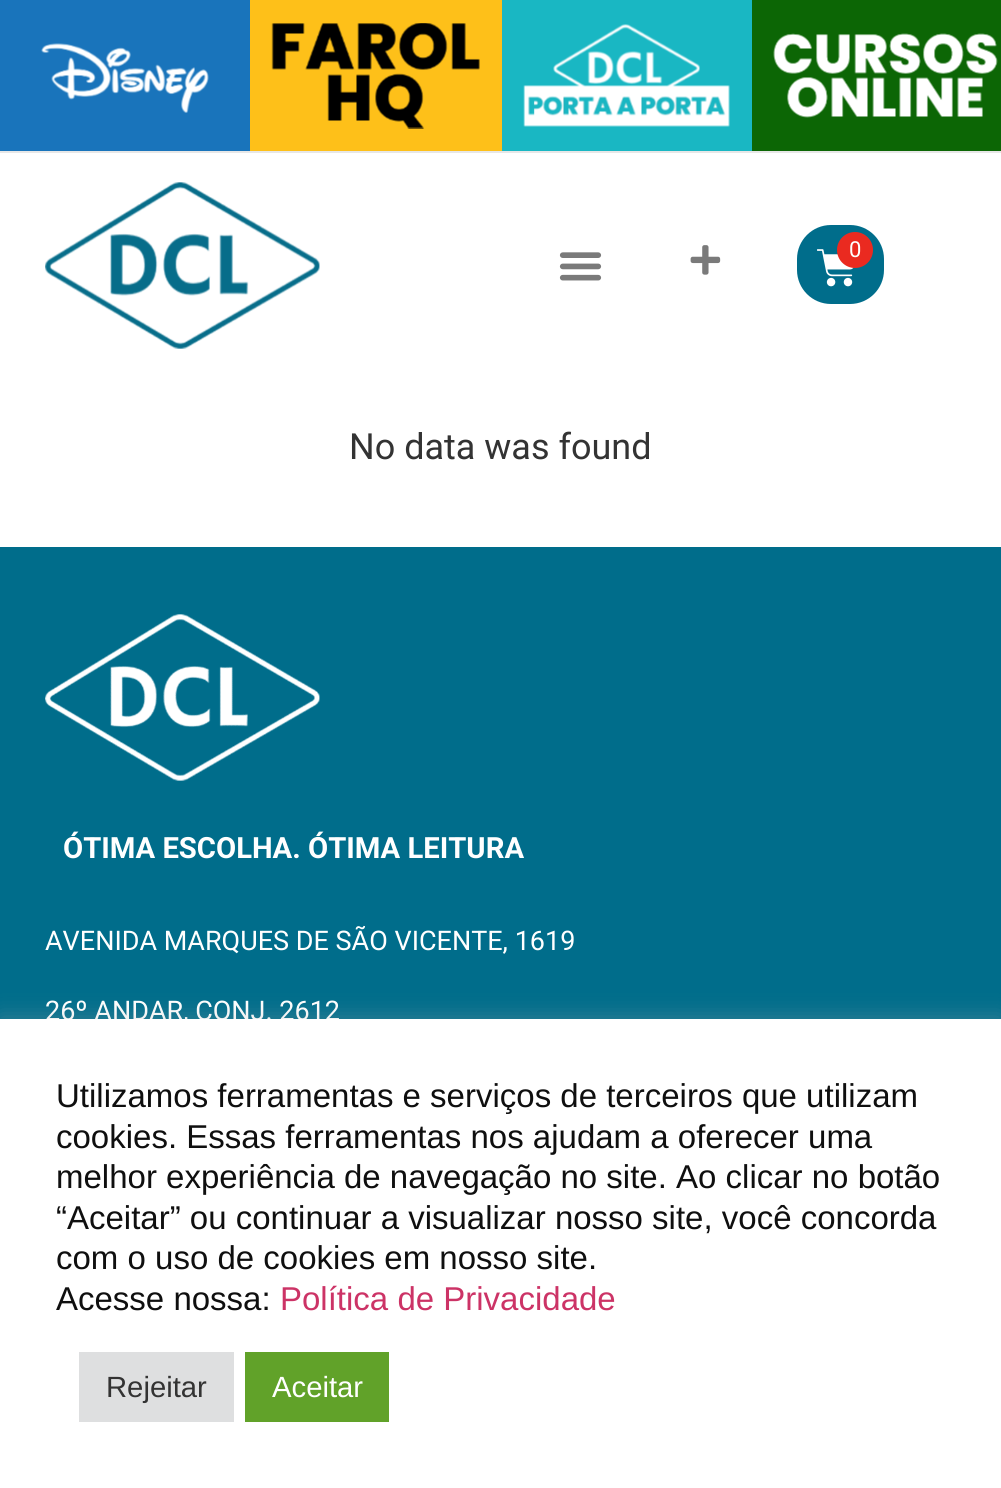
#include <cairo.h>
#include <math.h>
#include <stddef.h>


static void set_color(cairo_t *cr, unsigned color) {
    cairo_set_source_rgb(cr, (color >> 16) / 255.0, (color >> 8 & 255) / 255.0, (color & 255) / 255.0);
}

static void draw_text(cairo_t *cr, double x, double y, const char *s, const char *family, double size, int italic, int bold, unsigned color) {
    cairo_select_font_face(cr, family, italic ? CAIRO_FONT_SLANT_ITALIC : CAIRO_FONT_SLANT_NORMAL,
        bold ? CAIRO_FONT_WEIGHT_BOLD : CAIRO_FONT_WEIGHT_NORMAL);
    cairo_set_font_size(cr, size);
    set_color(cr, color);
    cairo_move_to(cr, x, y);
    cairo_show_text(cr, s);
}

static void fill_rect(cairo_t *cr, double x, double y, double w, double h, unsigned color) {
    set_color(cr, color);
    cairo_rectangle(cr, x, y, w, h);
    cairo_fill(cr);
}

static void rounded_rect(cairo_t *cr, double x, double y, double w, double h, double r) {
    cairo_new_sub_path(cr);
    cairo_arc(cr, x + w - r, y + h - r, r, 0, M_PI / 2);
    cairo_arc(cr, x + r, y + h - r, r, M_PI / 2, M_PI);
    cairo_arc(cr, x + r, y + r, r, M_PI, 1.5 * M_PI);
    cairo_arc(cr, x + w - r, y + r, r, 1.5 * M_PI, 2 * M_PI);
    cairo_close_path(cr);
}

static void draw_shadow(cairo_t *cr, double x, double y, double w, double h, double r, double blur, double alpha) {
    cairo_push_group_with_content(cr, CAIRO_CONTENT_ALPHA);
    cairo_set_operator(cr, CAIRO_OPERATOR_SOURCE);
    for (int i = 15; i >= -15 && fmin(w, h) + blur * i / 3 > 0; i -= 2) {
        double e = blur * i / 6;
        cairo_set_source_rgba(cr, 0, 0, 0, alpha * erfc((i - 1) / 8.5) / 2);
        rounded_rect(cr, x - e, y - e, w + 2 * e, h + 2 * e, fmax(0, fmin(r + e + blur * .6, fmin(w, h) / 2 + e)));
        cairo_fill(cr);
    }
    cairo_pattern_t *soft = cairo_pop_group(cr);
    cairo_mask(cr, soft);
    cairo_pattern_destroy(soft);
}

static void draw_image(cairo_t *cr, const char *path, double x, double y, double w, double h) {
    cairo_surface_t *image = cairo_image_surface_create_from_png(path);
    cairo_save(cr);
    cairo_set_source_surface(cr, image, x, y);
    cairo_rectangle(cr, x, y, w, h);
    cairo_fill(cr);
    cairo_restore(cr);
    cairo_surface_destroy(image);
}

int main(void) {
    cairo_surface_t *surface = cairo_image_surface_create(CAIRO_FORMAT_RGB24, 1001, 1488);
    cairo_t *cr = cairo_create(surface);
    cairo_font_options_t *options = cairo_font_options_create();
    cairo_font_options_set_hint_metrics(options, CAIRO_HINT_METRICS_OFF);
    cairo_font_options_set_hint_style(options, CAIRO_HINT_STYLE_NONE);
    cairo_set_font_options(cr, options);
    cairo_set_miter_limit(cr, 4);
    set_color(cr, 0xFFFFFF);
    cairo_paint(cr);
    fill_rect(cr, 0, 151, 1001, 2, 0xE7E7E7);
    fill_rect(cr, 0, 0, 250, 151, 0x1974BB);
    draw_image(cr, "assets/img1.png", 41, 43, 168, 70);
    fill_rect(cr, 250, 0, 252, 151, 0xFEC019);
    draw_image(cr, "assets/img2.png", 271, 23, 209, 106);
    fill_rect(cr, 502, 0, 250, 151, 0x19B7C3);
    draw_image(cr, "assets/img3.png", 523, 24, 207, 103);
    fill_rect(cr, 752, 0, 249, 151, 0x0C6605);
    draw_image(cr, "assets/img4.png", 773, 33, 225, 85);
    draw_image(cr, "assets/img5.png", 45, 182, 275, 167);
    draw_image(cr, "assets/img6.png", 559, 252, 43, 29);
    draw_image(cr, "assets/img7.png", 690, 245, 31, 30);
    set_color(cr, 0x006D8B);
    rounded_rect(cr, 797, 225, 87, 79, 34);
    cairo_fill(cr);
    draw_image(cr, "assets/img8.png", 817, 249, 37, 38);
    set_color(cr, 0xEA2A20);
    cairo_arc(cr, 855, 250, 18, 0, 2 * M_PI);
    cairo_fill(cr);
    draw_text(cr, 849, 257, "0", "Roboto", 22, 0, 0, 0xFFFFFF);
    draw_text(cr, 349, 459, "No data was found", "Roboto", 36, 0, 0, 0x333333);
    fill_rect(cr, 0, 547, 1001, 472, 0x006D8B);
    draw_image(cr, "assets/img9.png", 45, 614, 275, 167);
    draw_text(cr, 63, 858, "ÓTIMA ESCOLHA. ÓTIMA LEITURA", "Roboto", 29.25, 0, 1, 0xFFFFFF);
    draw_text(cr, 45, 950, "AVENIDA MARQUES DE SÃO VICENTE, 1619", "Roboto", 27, 0, 0, 0xFFFFFF);
    draw_text(cr, 45, 1020, "26º ANDAR, CONJ. 2612", "Roboto", 27, 0, 0, 0xFFFFFF);
    set_color(cr, 0xACABAB);
    draw_shadow(cr, 0, 1017, 1001, 470, 0, 11, 0.3);
    fill_rect(cr, 0, 1019, 1001, 469, 0xFFFFFF);
    draw_text(cr, 56, 1107, "Utilizamos ferramentas e serviços de terceiros que utilizam", "Liberation Sans", 33, 0, 0, 0x0F0F0F);
    draw_text(cr, 56, 1148, "cookies. Essas ferramentas nos ajudam a oferecer uma", "Liberation Sans", 33, 0, 0, 0x0F0F0F);
    draw_text(cr, 56, 1188, "melhor experiência de navegação no site. Ao clicar no botão", "Liberation Sans", 33, 0, 0, 0x0F0F0F);
    draw_text(cr, 56, 1229, "“Aceitar” ou continuar a visualizar nosso site, você concorda", "Liberation Sans", 33, 0, 0, 0x0F0F0F);
    draw_text(cr, 56, 1269, "com o uso de cookies em nosso site.", "Liberation Sans", 33, 0, 0, 0x0F0F0F);
    draw_text(cr, 56, 1310, "Acesse nossa:", "Liberation Sans", 33, 0, 0, 0x0F0F0F);
    draw_text(cr, 280, 1310, "Política de Privacidade", "Liberation Sans", 33, 0, 0, 0xCC3366);
    fill_rect(cr, 79, 1352, 155, 70, 0xDEDFE0);
    draw_text(cr, 106, 1397, "Rejeitar", "Liberation Sans", 29.25, 0, 0, 0x333333);
    fill_rect(cr, 245, 1352, 144, 70, 0x61A229);
    draw_text(cr, 272, 1397, "Aceitar", "Liberation Sans", 29.25, 0, 0, 0xFFFFFF);
    cairo_surface_write_to_png(surface, "output.png");
    cairo_font_options_destroy(options);
    cairo_destroy(cr);
    cairo_surface_destroy(surface);
    return 0;
}
